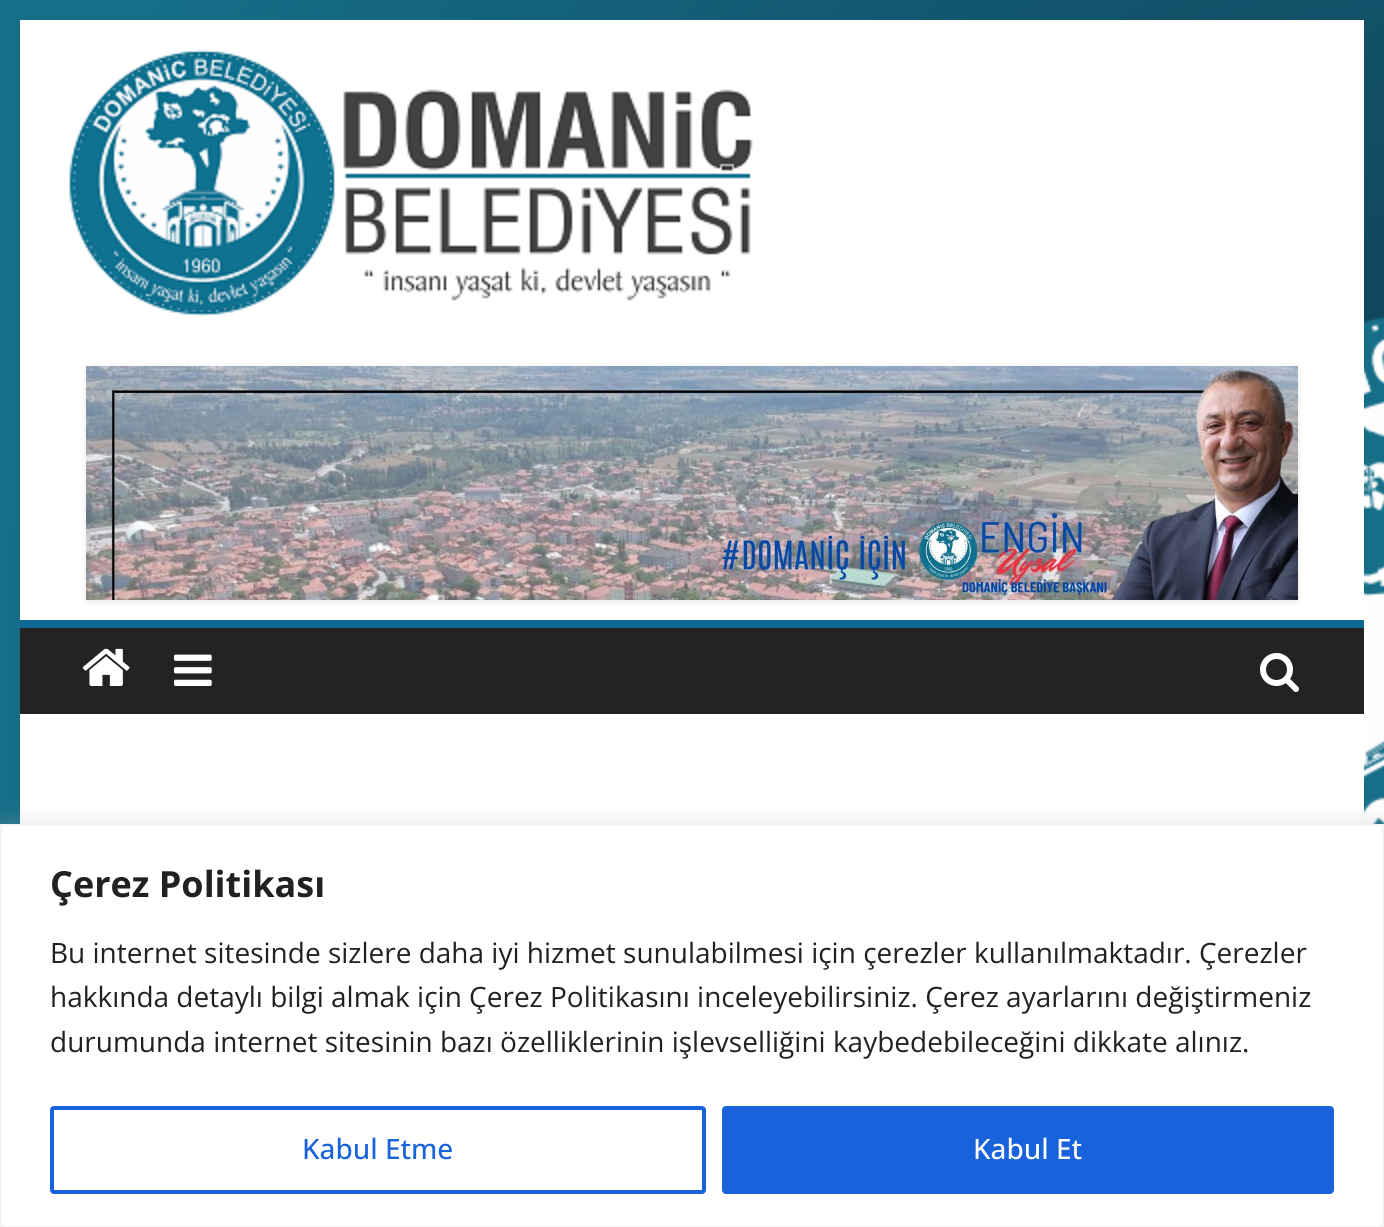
#include <cairo.h>
#include <math.h>
#include <stddef.h>


static void set_color(cairo_t *cr, unsigned color) {
    cairo_set_source_rgb(cr, (color >> 16) / 255.0, (color >> 8 & 255) / 255.0, (color & 255) / 255.0);
}

static void draw_text(cairo_t *cr, double x, double y, const char *s, const char *family, double size, int italic, int bold, unsigned color) {
    cairo_select_font_face(cr, family, italic ? CAIRO_FONT_SLANT_ITALIC : CAIRO_FONT_SLANT_NORMAL,
        bold ? CAIRO_FONT_WEIGHT_BOLD : CAIRO_FONT_WEIGHT_NORMAL);
    cairo_set_font_size(cr, size);
    set_color(cr, color);
    cairo_move_to(cr, x, y);
    cairo_show_text(cr, s);
}

static void fill_rect(cairo_t *cr, double x, double y, double w, double h, unsigned color) {
    set_color(cr, color);
    cairo_rectangle(cr, x, y, w, h);
    cairo_fill(cr);
}

static void rounded_rect(cairo_t *cr, double x, double y, double w, double h, double r) {
    cairo_new_sub_path(cr);
    cairo_arc(cr, x + w - r, y + h - r, r, 0, M_PI / 2);
    cairo_arc(cr, x + r, y + h - r, r, M_PI / 2, M_PI);
    cairo_arc(cr, x + r, y + r, r, M_PI, 1.5 * M_PI);
    cairo_arc(cr, x + w - r, y + r, r, 1.5 * M_PI, 2 * M_PI);
    cairo_close_path(cr);
}

static void draw_shadow(cairo_t *cr, double x, double y, double w, double h, double r, double blur, double alpha) {
    cairo_push_group_with_content(cr, CAIRO_CONTENT_ALPHA);
    cairo_set_operator(cr, CAIRO_OPERATOR_SOURCE);
    for (int i = 15; i >= -15 && fmin(w, h) + blur * i / 3 > 0; i -= 2) {
        double e = blur * i / 6;
        cairo_set_source_rgba(cr, 0, 0, 0, alpha * erfc((i - 1) / 8.5) / 2);
        rounded_rect(cr, x - e, y - e, w + 2 * e, h + 2 * e, fmax(0, fmin(r + e + blur * .6, fmin(w, h) / 2 + e)));
        cairo_fill(cr);
    }
    cairo_pattern_t *soft = cairo_pop_group(cr);
    cairo_mask(cr, soft);
    cairo_pattern_destroy(soft);
}

static void draw_image(cairo_t *cr, const char *path, double x, double y, double w, double h) {
    cairo_surface_t *image = cairo_image_surface_create_from_png(path);
    cairo_save(cr);
    cairo_set_source_surface(cr, image, x, y);
    cairo_rectangle(cr, x, y, w, h);
    cairo_fill(cr);
    cairo_restore(cr);
    cairo_surface_destroy(image);
}

int main(void) {
    cairo_surface_t *surface = cairo_image_surface_create(CAIRO_FORMAT_RGB24, 1384, 1227);
    cairo_t *cr = cairo_create(surface);
    cairo_font_options_t *options = cairo_font_options_create();
    cairo_font_options_set_hint_metrics(options, CAIRO_HINT_METRICS_OFF);
    cairo_font_options_set_hint_style(options, CAIRO_HINT_STYLE_NONE);
    cairo_set_font_options(cr, options);
    cairo_set_miter_limit(cr, 4);
    set_color(cr, 0xFFFFFF);
    cairo_paint(cr);
    draw_image(cr, "assets/img1.png", 0, 0, 1384, 824);
    fill_rect(cr, 20, 20, 1344, 600, 0xFFFFFF);
    draw_image(cr, "assets/img2.png", 69, 49, 684, 268);
    set_color(cr, 0x000000);
    draw_shadow(cr, 86, 368, 1212, 234, 0, 3, 0.1);
    draw_image(cr, "assets/img3.png", 86, 366, 1212, 234);
    fill_rect(cr, 20, 628, 1344, 86, 0x232323);
    fill_rect(cr, 20, 620, 1344, 8, 0x106992);
    draw_image(cr, "assets/img4.png", 82, 648, 48, 38);
    draw_image(cr, "assets/img5.png", 174, 654, 38, 32);
    draw_image(cr, "assets/img6.png", 1260, 653, 39, 39);
    fill_rect(cr, 20, 714, 1344, 110, 0xFFFFFF);
    set_color(cr, 0xACABAB);
    draw_shadow(cr, 0, 822, 1384, 404, 0, 10, 0.3);
    set_color(cr, 0xFFFFFF);
    cairo_rectangle(cr, 1, 825, 1382, 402);
    cairo_fill_preserve(cr);
    set_color(cr, 0xF4F4F4);
    cairo_stroke(cr);
    draw_text(cr, 50, 897, "Çerez Politikası", "Open Sans", 36, 0, 1, 0x212121);
    draw_text(cr, 50, 963, "Bu internet sitesinde sizlere daha iyi hizmet sunulabilmesi için çerezler kullanılmaktadır. Çerezler", "Open Sans", 28, 0, 0, 0x212121);
    draw_text(cr, 50, 1007, "hakkında detaylı bilgi almak için Çerez Politikasını inceleyebilirsiniz. Çerez ayarlarını değiştirmeniz", "Open Sans", 28, 0, 0, 0x212121);
    draw_text(cr, 50, 1052, "durumunda internet sitesinin bazı özelliklerinin işlevselliğini kaybedebileceğini dikkate alınız.", "Open Sans", 28, 0, 0, 0x212121);
    rounded_rect(cr, 52, 1108, 652, 84, 2);
    set_color(cr, 0x1863DC);
    cairo_set_line_width(cr, 4);
    cairo_stroke(cr);
    draw_text(cr, 302, 1159, "Kabul Etme", "Open Sans Medium", 28, 0, 0, 0x1863DC);
    rounded_rect(cr, 724, 1108, 608, 84, 2);
    cairo_fill_preserve(cr);
    cairo_stroke(cr);
    draw_text(cr, 973, 1159, "Kabul Et", "Open Sans Medium", 28, 0, 0, 0xFFFFFF);
    cairo_surface_write_to_png(surface, "output.png");
    cairo_font_options_destroy(options);
    cairo_destroy(cr);
    cairo_surface_destroy(surface);
    return 0;
}
